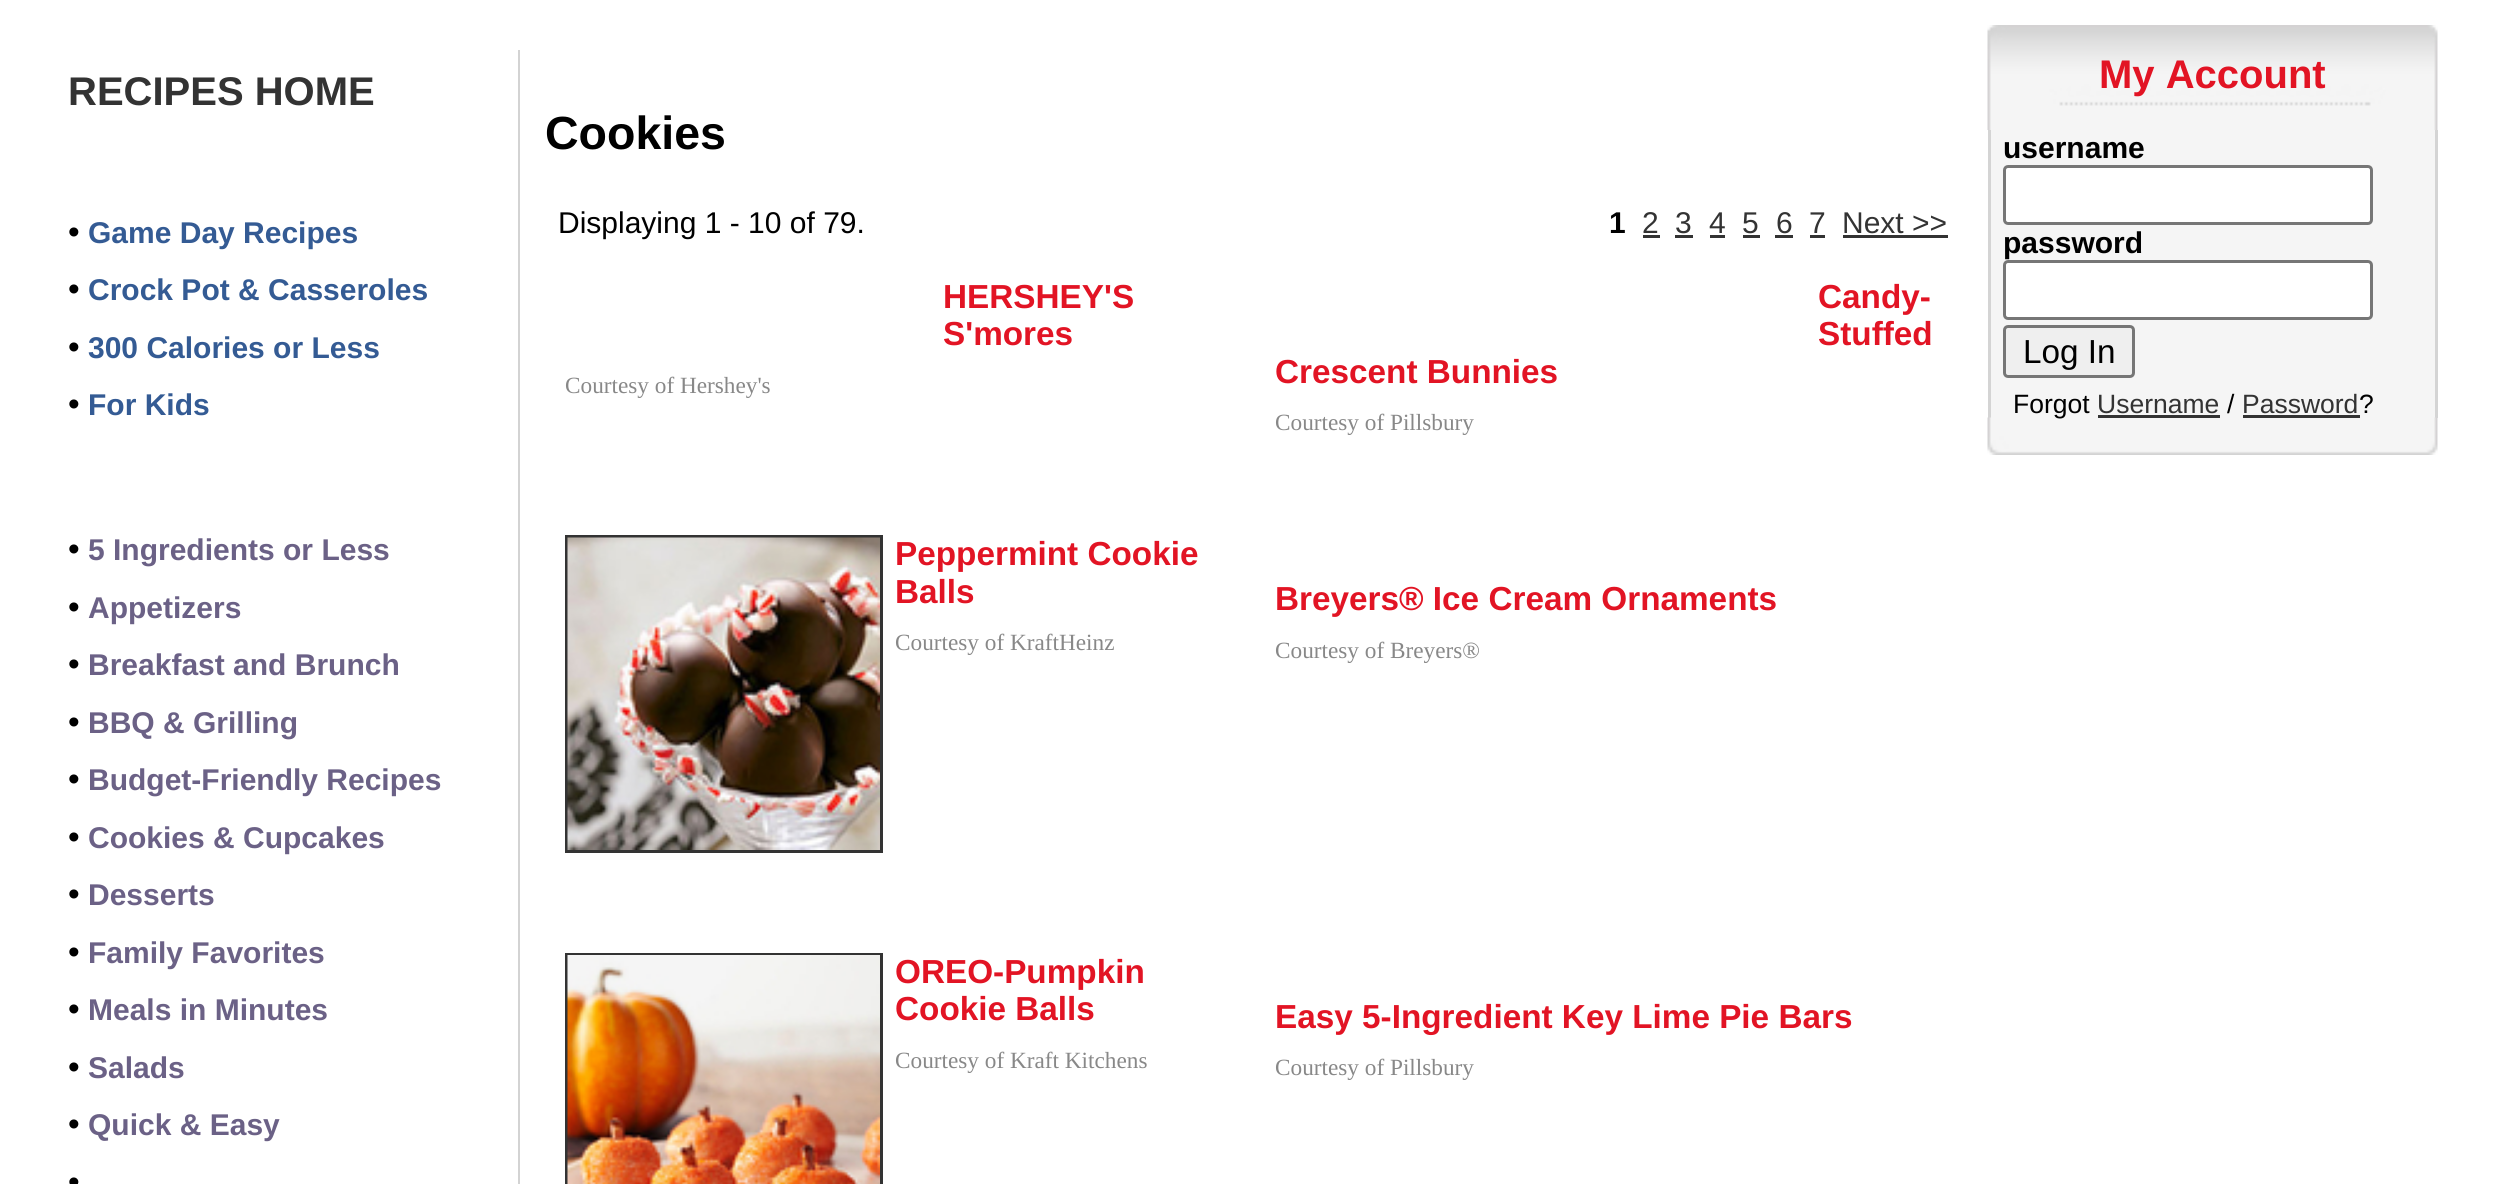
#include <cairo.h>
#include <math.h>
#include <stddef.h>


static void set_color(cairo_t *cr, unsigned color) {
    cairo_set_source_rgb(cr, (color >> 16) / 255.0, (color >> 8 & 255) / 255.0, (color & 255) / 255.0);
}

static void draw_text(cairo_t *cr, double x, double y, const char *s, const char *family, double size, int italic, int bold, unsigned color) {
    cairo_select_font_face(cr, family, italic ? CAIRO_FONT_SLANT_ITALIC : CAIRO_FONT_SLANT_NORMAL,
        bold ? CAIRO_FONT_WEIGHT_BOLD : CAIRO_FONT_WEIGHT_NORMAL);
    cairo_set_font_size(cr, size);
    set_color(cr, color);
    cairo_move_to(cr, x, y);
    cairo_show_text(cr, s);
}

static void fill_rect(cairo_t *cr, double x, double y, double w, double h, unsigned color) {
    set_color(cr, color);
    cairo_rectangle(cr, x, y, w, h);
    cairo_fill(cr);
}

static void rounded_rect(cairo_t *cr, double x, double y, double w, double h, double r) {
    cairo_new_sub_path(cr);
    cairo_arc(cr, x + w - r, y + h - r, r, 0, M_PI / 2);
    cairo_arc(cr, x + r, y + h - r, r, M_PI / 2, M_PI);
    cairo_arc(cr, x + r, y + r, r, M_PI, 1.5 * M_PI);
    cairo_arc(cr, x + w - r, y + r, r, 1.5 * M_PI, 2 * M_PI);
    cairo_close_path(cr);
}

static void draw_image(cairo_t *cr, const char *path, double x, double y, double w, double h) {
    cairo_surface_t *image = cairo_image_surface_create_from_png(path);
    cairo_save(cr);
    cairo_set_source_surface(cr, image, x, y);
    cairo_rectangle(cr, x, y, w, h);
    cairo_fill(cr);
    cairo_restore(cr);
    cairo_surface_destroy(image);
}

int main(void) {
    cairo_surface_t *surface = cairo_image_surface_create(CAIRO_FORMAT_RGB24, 2505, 1184);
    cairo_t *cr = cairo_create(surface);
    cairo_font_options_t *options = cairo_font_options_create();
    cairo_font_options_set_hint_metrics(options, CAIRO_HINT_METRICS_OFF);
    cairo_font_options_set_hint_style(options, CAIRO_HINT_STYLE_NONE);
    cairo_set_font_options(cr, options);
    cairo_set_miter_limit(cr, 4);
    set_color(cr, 0xFFFFFF);
    cairo_paint(cr);
    fill_rect(cr, 518, 50, 2, 1134, 0xD3D3D3);
    draw_text(cr, 68, 105, "RECIPES HOME", "Liberation Sans", 40, 0, 1, 0x333333);
    draw_text(cr, 68, 243, "•", "Liberation Sans", 33.3, 0, 0, 0x000000);
    draw_text(cr, 88, 243, "Game Day Recipes", "Liberation Sans", 30, 0, 1, 0x345B94);
    draw_text(cr, 68, 300, "•", "Liberation Sans", 33.3, 0, 0, 0x000000);
    draw_text(cr, 88, 300, "Crock Pot & Casseroles", "Liberation Sans", 30, 0, 1, 0x345B94);
    draw_text(cr, 68, 358, "•", "Liberation Sans", 33.3, 0, 0, 0x000000);
    draw_text(cr, 88, 358, "300 Calories or Less", "Liberation Sans", 30, 0, 1, 0x345B94);
    draw_text(cr, 68, 415, "•", "Liberation Sans", 33.3, 0, 0, 0x000000);
    draw_text(cr, 88, 415, "For Kids", "Liberation Sans", 30, 0, 1, 0x345B94);
    draw_text(cr, 68, 560, "•", "Liberation Sans", 33.3, 0, 0, 0x000000);
    draw_text(cr, 88, 560, "5 Ingredients or Less", "Liberation Sans", 30, 0, 1, 0x6B6186);
    draw_text(cr, 68, 618, "•", "Liberation Sans", 33.3, 0, 0, 0x000000);
    draw_text(cr, 88, 618, "Appetizers", "Liberation Sans", 30, 0, 1, 0x6B6186);
    draw_text(cr, 68, 675, "•", "Liberation Sans", 33.3, 0, 0, 0x000000);
    draw_text(cr, 88, 675, "Breakfast and Brunch", "Liberation Sans", 30, 0, 1, 0x6B6186);
    draw_text(cr, 68, 733, "•", "Liberation Sans", 33.3, 0, 0, 0x000000);
    draw_text(cr, 88, 733, "BBQ & Grilling", "Liberation Sans", 30, 0, 1, 0x6B6186);
    draw_text(cr, 68, 790, "•", "Liberation Sans", 33.3, 0, 0, 0x000000);
    draw_text(cr, 88, 790, "Budget-Friendly Recipes", "Liberation Sans", 30, 0, 1, 0x6B6186);
    draw_text(cr, 68, 848, "•", "Liberation Sans", 33.3, 0, 0, 0x000000);
    draw_text(cr, 88, 848, "Cookies & Cupcakes", "Liberation Sans", 30, 0, 1, 0x6B6186);
    draw_text(cr, 68, 905, "•", "Liberation Sans", 33.3, 0, 0, 0x000000);
    draw_text(cr, 88, 905, "Desserts", "Liberation Sans", 30, 0, 1, 0x6B6186);
    draw_text(cr, 68, 963, "•", "Liberation Sans", 33.3, 0, 0, 0x000000);
    draw_text(cr, 88, 963, "Family Favorites", "Liberation Sans", 30, 0, 1, 0x6B6186);
    draw_text(cr, 68, 1020, "•", "Liberation Sans", 33.3, 0, 0, 0x000000);
    draw_text(cr, 88, 1020, "Meals in Minutes", "Liberation Sans", 30, 0, 1, 0x6B6186);
    draw_text(cr, 68, 1078, "•", "Liberation Sans", 33.3, 0, 0, 0x000000);
    draw_text(cr, 88, 1078, "Salads", "Liberation Sans", 30, 0, 1, 0x6B6186);
    draw_text(cr, 68, 1135, "•", "Liberation Sans", 33.3, 0, 0, 0x000000);
    draw_text(cr, 88, 1135, "Quick & Easy", "Liberation Sans", 30, 0, 1, 0x6B6186);
    draw_text(cr, 68, 1193, "•", "Liberation Sans", 33.3, 0, 0, 0x000000);
    draw_text(cr, 545, 149, "Cookies", "Liberation Sans", 46.5, 0, 1, 0x000000);
    draw_text(cr, 558, 233, "Displaying 1 - 10 of 79.", "Liberation Sans", 30, 0, 0, 0x000000);
    draw_text(cr, 1609, 233, "1", "Liberation Sans", 30, 0, 1, 0x000000);
    draw_text(cr, 1642, 233, "2", "Liberation Sans", 30, 0, 0, 0x333333);
    fill_rect(cr, 1643, 235, 17, 3, 0x333333);
    draw_text(cr, 1675, 233, "3", "Liberation Sans", 30, 0, 0, 0x333333);
    fill_rect(cr, 1675, 235, 18, 3, 0x333333);
    draw_text(cr, 1709, 233, "4", "Liberation Sans", 30, 0, 0, 0x333333);
    fill_rect(cr, 1710, 235, 15, 3, 0x333333);
    draw_text(cr, 1742, 233, "5", "Liberation Sans", 30, 0, 0, 0x333333);
    fill_rect(cr, 1743, 235, 17, 3, 0x333333);
    draw_text(cr, 1776, 233, "6", "Liberation Sans", 30, 0, 0, 0x333333);
    fill_rect(cr, 1775, 235, 18, 3, 0x333333);
    draw_text(cr, 1809, 233, "7", "Liberation Sans", 30, 0, 0, 0x333333);
    fill_rect(cr, 1810, 235, 15, 3, 0x333333);
    draw_text(cr, 1842, 233, "Next >>", "Liberation Sans", 30, 0, 0, 0x333333);
    fill_rect(cr, 1843, 235, 105, 3, 0x333333);
    draw_text(cr, 943, 308, "HERSHEY'S", "Liberation Sans", 33.3, 0, 1, 0xE21424);
    draw_text(cr, 943, 345, "S'mores", "Liberation Sans", 33.3, 0, 1, 0xE21424);
    draw_text(cr, 565, 393, "Courtesy of Hershey's", "Liberation Serif", 23.25, 0, 0, 0x888888);
    draw_text(cr, 1818, 308, "Candy-", "Liberation Sans", 33.3, 0, 1, 0xE21424);
    draw_text(cr, 1818, 345, "Stuffed", "Liberation Sans", 33.3, 0, 1, 0xE21424);
    draw_text(cr, 1275, 383, "Crescent Bunnies", "Liberation Sans", 33.3, 0, 1, 0xE21424);
    draw_text(cr, 1275, 430, "Courtesy of Pillsbury", "Liberation Serif", 23.25, 0, 0, 0x888888);
    cairo_rectangle(cr, 566.5, 536.5, 315, 315);
    set_color(cr, 0x333333);
    cairo_set_line_width(cr, 3);
    cairo_stroke(cr);
    draw_image(cr, "assets/img1.png", 567, 537, 313, 313);
    draw_text(cr, 895, 565, "Peppermint Cookie", "Liberation Sans", 33.3, 0, 1, 0xE21424);
    draw_text(cr, 895, 603, "Balls", "Liberation Sans", 33.3, 0, 1, 0xE21424);
    draw_text(cr, 895, 650, "Courtesy of KraftHeinz", "Liberation Serif", 23.25, 0, 0, 0x888888);
    draw_text(cr, 1275, 610, "Breyers® Ice Cream Ornaments", "Liberation Sans", 33.3, 0, 1, 0xE21424);
    draw_text(cr, 1275, 658, "Courtesy of Breyers®", "Liberation Serif", 23.25, 0, 0, 0x888888);
    cairo_rectangle(cr, 566.5, 954.5, 315, 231);
    set_color(cr, 0x333333);
    cairo_stroke(cr);
    draw_image(cr, "assets/img2.png", 567, 955, 313, 229);
    draw_text(cr, 895, 983, "OREO-Pumpkin", "Liberation Sans", 33.3, 0, 1, 0xE21424);
    draw_text(cr, 895, 1020, "Cookie Balls", "Liberation Sans", 33.3, 0, 1, 0xE21424);
    draw_text(cr, 895, 1068, "Courtesy of Kraft Kitchens", "Liberation Serif", 23.25, 0, 0, 0x888888);
    draw_text(cr, 1275, 1028, "Easy 5-Ingredient Key Lime Pie Bars", "Liberation Sans", 33.3, 0, 1, 0xE21424);
    draw_text(cr, 1275, 1075, "Courtesy of Pillsbury", "Liberation Serif", 23.25, 0, 0, 0x888888);
    draw_image(cr, "assets/img3.png", 1987, 25, 451, 105);
    draw_text(cr, 2099, 88, "My Account", "Liberation Sans", 40, 0, 1, 0xE21424);
    fill_rect(cr, 1991, 130, 444, 288, 0xF5F5F5);
    fill_rect(cr, 2435, 130, 3, 288, 0xD4D4D4);
    fill_rect(cr, 1988, 130, 3, 288, 0xD4D4D4);
    draw_text(cr, 2003, 158, "username", "Liberation Sans", 30, 0, 1, 0x000000);
    set_color(cr, 0xFFFFFF);
    rounded_rect(cr, 2004.5, 166.5, 367, 57, 3.5);
    cairo_fill_preserve(cr);
    set_color(cr, 0x767676);
    cairo_stroke(cr);
    draw_text(cr, 2003, 253, "password", "Liberation Sans", 30, 0, 1, 0x000000);
    set_color(cr, 0xFFFFFF);
    rounded_rect(cr, 2004.5, 261.5, 367, 57, 3.5);
    cairo_fill_preserve(cr);
    set_color(cr, 0x767676);
    cairo_stroke(cr);
    set_color(cr, 0xEFEFEF);
    rounded_rect(cr, 2004.5, 326.5, 129, 50, 3.5);
    cairo_fill_preserve(cr);
    set_color(cr, 0x767676);
    cairo_stroke(cr);
    draw_text(cr, 2023, 363, "Log In", "Liberation Sans", 33.3, 0, 0, 0x000000);
    draw_image(cr, "assets/img4.png", 1987, 417, 451, 38);
    draw_text(cr, 2013, 413, "Forgot", "Liberation Sans", 26.5, 0, 0, 0x000000);
    draw_text(cr, 2097, 413, "Username", "Liberation Sans", 26.5, 0, 0, 0x333333);
    fill_rect(cr, 2098, 415, 122, 3, 0x333333);
    draw_text(cr, 2227, 413, "/", "Liberation Sans", 26.5, 0, 0, 0x000000);
    draw_text(cr, 2242, 413, "Password", "Liberation Sans", 26.5, 0, 0, 0x333333);
    fill_rect(cr, 2243, 415, 117, 3, 0x333333);
    draw_text(cr, 2359, 413, "?", "Liberation Sans", 26.5, 0, 0, 0x000000);
    cairo_surface_write_to_png(surface, "output.png");
    cairo_font_options_destroy(options);
    cairo_destroy(cr);
    cairo_surface_destroy(surface);
    return 0;
}
